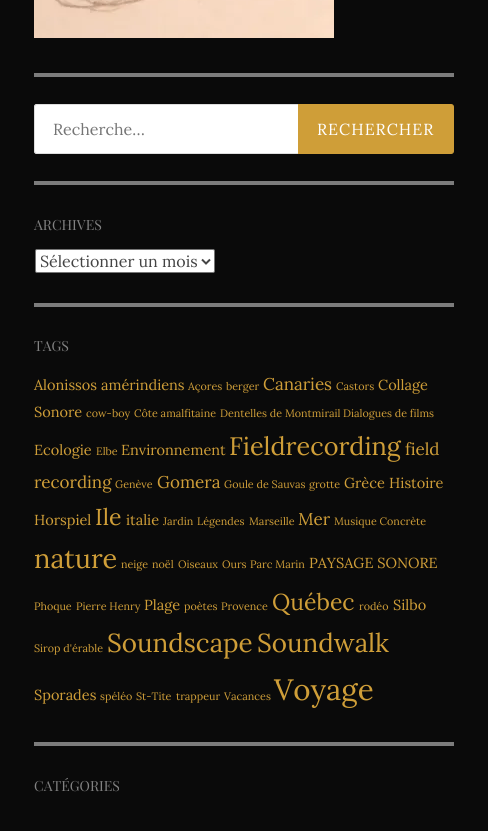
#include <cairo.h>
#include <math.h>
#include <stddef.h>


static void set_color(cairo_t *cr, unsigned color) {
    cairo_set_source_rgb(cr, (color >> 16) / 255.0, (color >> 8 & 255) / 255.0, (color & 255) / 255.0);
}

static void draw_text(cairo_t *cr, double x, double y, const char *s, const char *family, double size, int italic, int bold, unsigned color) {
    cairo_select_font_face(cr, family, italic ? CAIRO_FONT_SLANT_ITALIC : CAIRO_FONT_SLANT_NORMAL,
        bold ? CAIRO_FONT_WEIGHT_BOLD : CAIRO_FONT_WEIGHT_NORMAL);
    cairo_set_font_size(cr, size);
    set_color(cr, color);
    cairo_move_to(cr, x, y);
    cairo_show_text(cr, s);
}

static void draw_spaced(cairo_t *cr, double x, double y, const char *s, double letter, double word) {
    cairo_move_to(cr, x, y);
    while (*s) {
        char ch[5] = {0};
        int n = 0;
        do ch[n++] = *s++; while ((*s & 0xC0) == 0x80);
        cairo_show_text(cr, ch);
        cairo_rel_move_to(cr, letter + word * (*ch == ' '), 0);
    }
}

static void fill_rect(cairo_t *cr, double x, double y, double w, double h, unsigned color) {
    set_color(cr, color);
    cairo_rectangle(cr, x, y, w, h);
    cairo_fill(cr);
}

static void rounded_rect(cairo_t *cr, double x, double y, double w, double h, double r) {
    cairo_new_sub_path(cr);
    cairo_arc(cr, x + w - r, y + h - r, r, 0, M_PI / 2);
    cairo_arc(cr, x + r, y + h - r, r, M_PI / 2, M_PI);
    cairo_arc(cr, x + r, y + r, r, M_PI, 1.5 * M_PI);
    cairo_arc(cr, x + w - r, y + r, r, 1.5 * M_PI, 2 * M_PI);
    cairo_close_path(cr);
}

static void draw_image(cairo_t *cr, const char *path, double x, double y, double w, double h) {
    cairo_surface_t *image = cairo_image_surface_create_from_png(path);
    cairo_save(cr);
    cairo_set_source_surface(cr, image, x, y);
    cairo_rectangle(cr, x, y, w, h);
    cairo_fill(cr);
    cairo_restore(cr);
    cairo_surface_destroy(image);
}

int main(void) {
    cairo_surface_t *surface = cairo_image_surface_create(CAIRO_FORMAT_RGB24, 488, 831);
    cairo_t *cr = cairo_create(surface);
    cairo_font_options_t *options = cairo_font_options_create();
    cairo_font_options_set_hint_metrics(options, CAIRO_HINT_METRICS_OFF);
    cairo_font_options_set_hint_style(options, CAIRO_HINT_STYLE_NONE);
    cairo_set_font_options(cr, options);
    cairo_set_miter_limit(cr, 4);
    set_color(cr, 0x0A0A0A);
    cairo_paint(cr);
    fill_rect(cr, 34, 73, 420, 4, 0x7C7C7C);
    draw_image(cr, "assets/img1.png", 34, 0, 300, 38);
    fill_rect(cr, 34, 181, 420, 4, 0x7C7C7C);
    set_color(cr, 0xFFFFFF);
    cairo_new_path(cr);
    cairo_move_to(cr, 37, 104);
    cairo_line_to(cr, 450, 104);
    cairo_line_to(cr, 450, 154);
    cairo_line_to(cr, 37, 154);
    cairo_curve_to(cr, 35.5, 154, 34, 152.5, 34, 151);
    cairo_line_to(cr, 34, 107);
    cairo_curve_to(cr, 34, 105.5, 35.5, 104, 37, 104);
    cairo_close_path(cr);
    cairo_fill(cr);
    set_color(cr, 0xDDDDDD);
    cairo_set_fill_rule(cr, CAIRO_FILL_RULE_EVEN_ODD);
    cairo_new_path(cr);
    cairo_move_to(cr, 37, 104);
    cairo_line_to(cr, 450, 104);
    cairo_line_to(cr, 450, 154);
    cairo_line_to(cr, 37, 154);
    cairo_curve_to(cr, 35, 154, 34, 153, 34, 151);
    cairo_line_to(cr, 34, 107);
    cairo_curve_to(cr, 34, 105, 35, 104, 37, 104);
    cairo_close_path(cr);
    cairo_move_to(cr, 37, 105);
    cairo_line_to(cr, 450, 105);
    cairo_line_to(cr, 450, 153);
    cairo_line_to(cr, 37, 153);
    cairo_curve_to(cr, 36, 153, 35, 152, 35, 151);
    cairo_line_to(cr, 35, 107);
    cairo_curve_to(cr, 35, 106, 36, 105, 37, 105);
    cairo_close_path(cr);
    cairo_fill(cr);
    draw_text(cr, 53, 135, "Recherche…", "Lora", 16, 0, 0, 0x757575);
    set_color(cr, 0xCF9E38);
    cairo_new_path(cr);
    cairo_move_to(cr, 298.5, 104.5);
    cairo_line_to(cr, 451, 104.5);
    cairo_curve_to(cr, 452.5, 104.5, 453.5, 105.5, 453.5, 107);
    cairo_line_to(cr, 453.5, 151);
    cairo_curve_to(cr, 453.5, 152.5, 452.5, 153.5, 451, 153.5);
    cairo_line_to(cr, 298.5, 153.5);
    cairo_close_path(cr);
    cairo_fill_preserve(cr);
    cairo_set_line_width(cr, 1);
    cairo_stroke(cr);
    set_color(cr, 0xFFFFFF);
    draw_spaced(cr, 317, 135, "RECHERCHER", 1, 0);
    fill_rect(cr, 34, 303, 420, 4, 0x7C7C7C);
    draw_text(cr, 34, 230, "ARCHIVES", "Playfair Display", 14, 0, 0, 0x828282);
    set_color(cr, 0xFFFFFF);
    rounded_rect(cr, 35.5, 249.5, 179, 23, 1.5);
    cairo_fill_preserve(cr);
    set_color(cr, 0x767676);
    cairo_stroke(cr);
    cairo_new_path(cr);
    cairo_move_to(cr, 202, 259.5);
    cairo_line_to(cr, 206, 263.5);
    cairo_line_to(cr, 210, 259.5);
    set_color(cr, 0x444444);
    cairo_set_line_width(cr, 2);
    cairo_stroke(cr);
    draw_text(cr, 40, 267, "Sélectionner un mois", "Lora", 16, 0, 0, 0x444444);
    fill_rect(cr, 34, 742, 420, 4, 0x7C7C7C);
    draw_text(cr, 34, 351, "TAGS", "Playfair Display", 14, 0, 0, 0x828282);
    draw_text(cr, 34, 390, "Alonissos", "Lora", 14.5, 0, 0, 0xCF9E38);
    draw_text(cr, 101, 390, "amérindiens", "Lora", 14.5, 0, 0, 0xCF9E38);
    draw_text(cr, 188, 390, "Açores", "Lora", 10.75, 0, 0, 0xCF9E38);
    draw_text(cr, 226, 390, "berger", "Lora", 10.75, 0, 0, 0xCF9E38);
    draw_text(cr, 263, 390, "Canaries", "Lora", 17, 0, 0, 0xCF9E38);
    draw_text(cr, 336, 390, "Castors", "Lora", 10.75, 0, 0, 0xCF9E38);
    draw_text(cr, 378, 390, "Collage", "Lora", 14.5, 0, 0, 0xCF9E38);
    draw_text(cr, 34, 417, "Sonore", "Lora", 14.5, 0, 0, 0xCF9E38);
    draw_text(cr, 86, 417, "cow-boy", "Lora", 10.75, 0, 0, 0xCF9E38);
    draw_text(cr, 134, 417, "Côte amalfitaine", "Lora", 10.75, 0, 0, 0xCF9E38);
    draw_text(cr, 220, 417, "Dentelles de Montmirail", "Lora", 10.75, 0, 0, 0xCF9E38);
    draw_text(cr, 343, 417, "Dialogues de films", "Lora", 10.75, 0, 0, 0xCF9E38);
    draw_text(cr, 34, 455, "Ecologie", "Lora", 14.5, 0, 0, 0xCF9E38);
    draw_text(cr, 96, 455, "Elbe", "Lora", 10.75, 0, 0, 0xCF9E38);
    draw_text(cr, 121, 455, "Environnement", "Lora", 14.5, 0, 0, 0xCF9E38);
    draw_text(cr, 229, 455, "Fieldrecording", "Lora", 25.25, 0, 0, 0xCF9E38);
    draw_text(cr, 405, 455, "field", "Lora", 17, 0, 0, 0xCF9E38);
    draw_text(cr, 34, 488, "recording", "Lora", 17, 0, 0, 0xCF9E38);
    draw_text(cr, 115, 488, "Genève", "Lora", 10.75, 0, 0, 0xCF9E38);
    draw_text(cr, 157, 488, "Gomera", "Lora", 17, 0, 0, 0xCF9E38);
    draw_text(cr, 224, 488, "Goule de Sauvas", "Lora", 10.75, 0, 0, 0xCF9E38);
    draw_text(cr, 309, 488, "grotte", "Lora", 10.75, 0, 0, 0xCF9E38);
    draw_text(cr, 344, 488, "Grèce", "Lora", 14.5, 0, 0, 0xCF9E38);
    draw_text(cr, 389, 488, "Histoire", "Lora", 14.5, 0, 0, 0xCF9E38);
    draw_text(cr, 34, 525, "Horspiel", "Lora", 14.5, 0, 0, 0xCF9E38);
    draw_text(cr, 95, 525, "Ile", "Lora", 23, 0, 0, 0xCF9E38);
    draw_text(cr, 126, 525, "italie", "Lora", 14.5, 0, 0, 0xCF9E38);
    draw_text(cr, 163, 525, "Jardin", "Lora", 10.75, 0, 0, 0xCF9E38);
    draw_text(cr, 197, 525, "Légendes", "Lora", 10.75, 0, 0, 0xCF9E38);
    draw_text(cr, 249, 525, "Marseille", "Lora", 10.75, 0, 0, 0xCF9E38);
    draw_text(cr, 298, 525, "Mer", "Lora", 17, 0, 0, 0xCF9E38);
    draw_text(cr, 334, 525, "Musique Concrète", "Lora", 10.75, 0, 0, 0xCF9E38);
    draw_text(cr, 34, 568, "nature", "Lora", 27, 0, 0, 0xCF9E38);
    draw_text(cr, 121, 568, "neige", "Lora", 10.75, 0, 0, 0xCF9E38);
    draw_text(cr, 152, 568, "noël", "Lora", 10.75, 0, 0, 0xCF9E38);
    draw_text(cr, 178, 568, "Oiseaux", "Lora", 10.75, 0, 0, 0xCF9E38);
    draw_text(cr, 222, 568, "Ours", "Lora", 10.75, 0, 0, 0xCF9E38);
    draw_text(cr, 250, 568, "Parc Marin", "Lora", 10.75, 0, 0, 0xCF9E38);
    draw_text(cr, 309, 568, "PAYSAGE SONORE", "Lora", 14.5, 0, 0, 0xCF9E38);
    draw_text(cr, 34, 610, "Phoque", "Lora", 10.75, 0, 0, 0xCF9E38);
    draw_text(cr, 76, 610, "Pierre Henry", "Lora", 10.75, 0, 0, 0xCF9E38);
    draw_text(cr, 144, 610, "Plage", "Lora", 14.5, 0, 0, 0xCF9E38);
    draw_text(cr, 184, 610, "poètes", "Lora", 10.75, 0, 0, 0xCF9E38);
    draw_text(cr, 221, 610, "Provence", "Lora", 10.75, 0, 0, 0xCF9E38);
    draw_text(cr, 272, 610, "Québec", "Lora", 23, 0, 0, 0xCF9E38);
    draw_text(cr, 359, 610, "rodéo", "Lora", 10.75, 0, 0, 0xCF9E38);
    draw_text(cr, 393, 610, "Silbo", "Lora", 14.5, 0, 0, 0xCF9E38);
    draw_text(cr, 34, 652, "Sirop d'érable", "Lora", 10.75, 0, 0, 0xCF9E38);
    draw_text(cr, 107, 652, "Soundscape", "Lora", 26, 0, 0, 0xCF9E38);
    draw_text(cr, 257, 652, "Soundwalk", "Lora", 26, 0, 0, 0xCF9E38);
    draw_text(cr, 34, 700, "Sporades", "Lora", 14.5, 0, 0, 0xCF9E38);
    draw_text(cr, 100, 700, "spéléo", "Lora", 10.75, 0, 0, 0xCF9E38);
    draw_text(cr, 136, 700, "St-Tite", "Lora", 10.75, 0, 0, 0xCF9E38);
    draw_text(cr, 176, 700, "trappeur", "Lora", 10.75, 0, 0, 0xCF9E38);
    draw_text(cr, 224, 700, "Vacances", "Lora", 10.75, 0, 0, 0xCF9E38);
    draw_text(cr, 274, 700, "Voyage", "Lora", 29.5, 0, 0, 0xCF9E38);
    draw_text(cr, 34, 791, "CATÉGORIES", "Playfair Display", 14, 0, 0, 0x828282);
    cairo_surface_write_to_png(surface, "output.png");
    cairo_font_options_destroy(options);
    cairo_destroy(cr);
    cairo_surface_destroy(surface);
    return 0;
}
